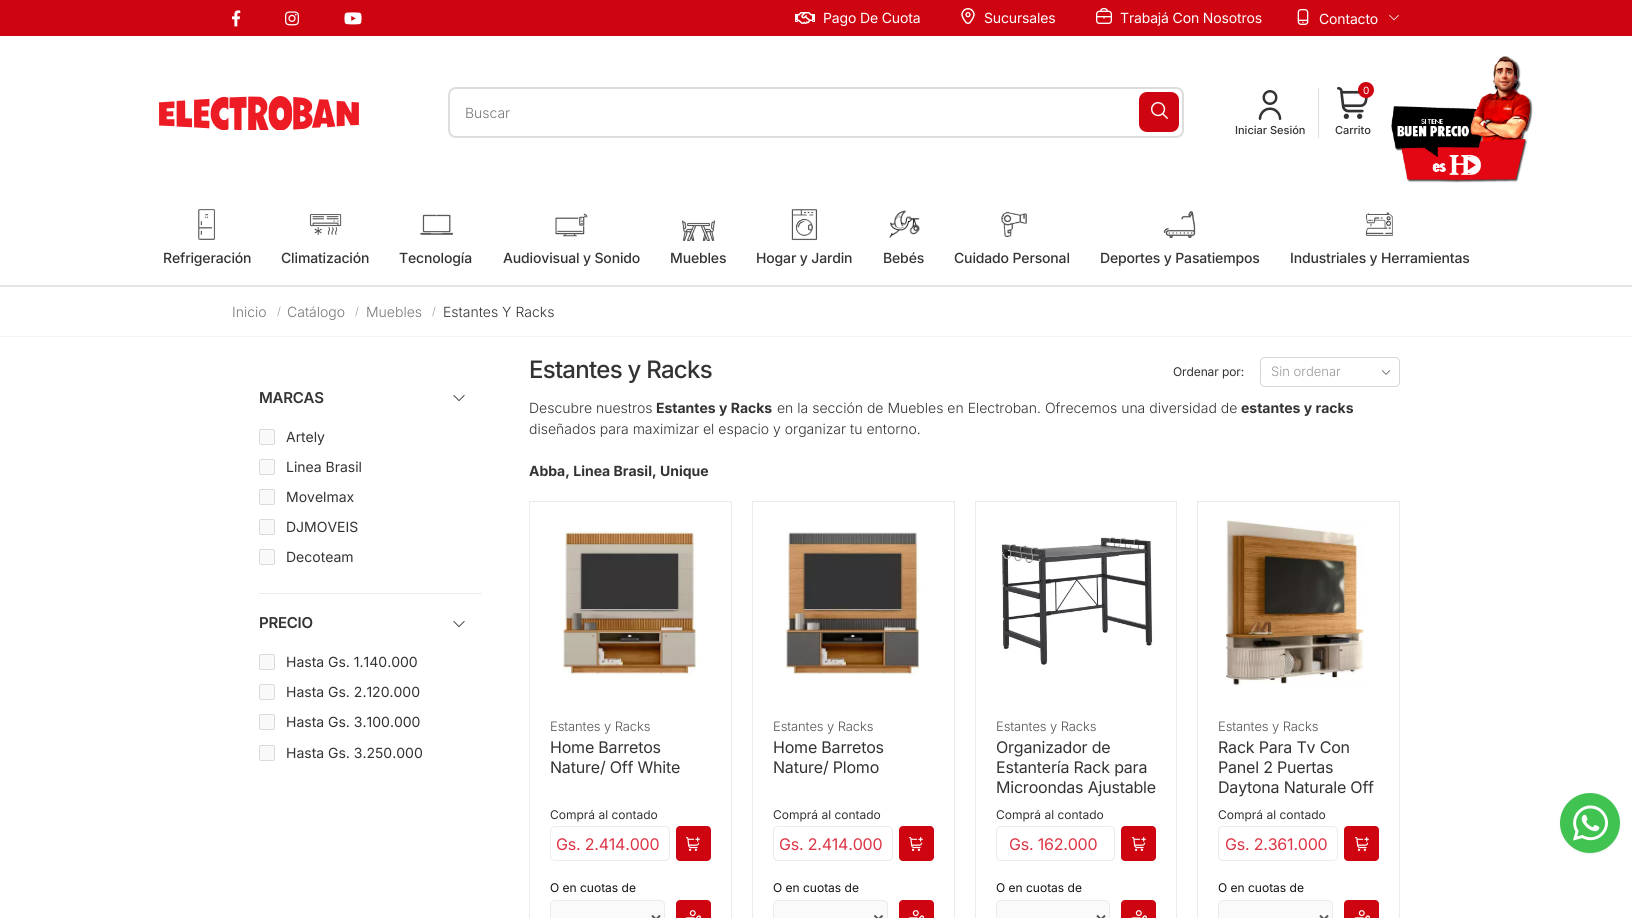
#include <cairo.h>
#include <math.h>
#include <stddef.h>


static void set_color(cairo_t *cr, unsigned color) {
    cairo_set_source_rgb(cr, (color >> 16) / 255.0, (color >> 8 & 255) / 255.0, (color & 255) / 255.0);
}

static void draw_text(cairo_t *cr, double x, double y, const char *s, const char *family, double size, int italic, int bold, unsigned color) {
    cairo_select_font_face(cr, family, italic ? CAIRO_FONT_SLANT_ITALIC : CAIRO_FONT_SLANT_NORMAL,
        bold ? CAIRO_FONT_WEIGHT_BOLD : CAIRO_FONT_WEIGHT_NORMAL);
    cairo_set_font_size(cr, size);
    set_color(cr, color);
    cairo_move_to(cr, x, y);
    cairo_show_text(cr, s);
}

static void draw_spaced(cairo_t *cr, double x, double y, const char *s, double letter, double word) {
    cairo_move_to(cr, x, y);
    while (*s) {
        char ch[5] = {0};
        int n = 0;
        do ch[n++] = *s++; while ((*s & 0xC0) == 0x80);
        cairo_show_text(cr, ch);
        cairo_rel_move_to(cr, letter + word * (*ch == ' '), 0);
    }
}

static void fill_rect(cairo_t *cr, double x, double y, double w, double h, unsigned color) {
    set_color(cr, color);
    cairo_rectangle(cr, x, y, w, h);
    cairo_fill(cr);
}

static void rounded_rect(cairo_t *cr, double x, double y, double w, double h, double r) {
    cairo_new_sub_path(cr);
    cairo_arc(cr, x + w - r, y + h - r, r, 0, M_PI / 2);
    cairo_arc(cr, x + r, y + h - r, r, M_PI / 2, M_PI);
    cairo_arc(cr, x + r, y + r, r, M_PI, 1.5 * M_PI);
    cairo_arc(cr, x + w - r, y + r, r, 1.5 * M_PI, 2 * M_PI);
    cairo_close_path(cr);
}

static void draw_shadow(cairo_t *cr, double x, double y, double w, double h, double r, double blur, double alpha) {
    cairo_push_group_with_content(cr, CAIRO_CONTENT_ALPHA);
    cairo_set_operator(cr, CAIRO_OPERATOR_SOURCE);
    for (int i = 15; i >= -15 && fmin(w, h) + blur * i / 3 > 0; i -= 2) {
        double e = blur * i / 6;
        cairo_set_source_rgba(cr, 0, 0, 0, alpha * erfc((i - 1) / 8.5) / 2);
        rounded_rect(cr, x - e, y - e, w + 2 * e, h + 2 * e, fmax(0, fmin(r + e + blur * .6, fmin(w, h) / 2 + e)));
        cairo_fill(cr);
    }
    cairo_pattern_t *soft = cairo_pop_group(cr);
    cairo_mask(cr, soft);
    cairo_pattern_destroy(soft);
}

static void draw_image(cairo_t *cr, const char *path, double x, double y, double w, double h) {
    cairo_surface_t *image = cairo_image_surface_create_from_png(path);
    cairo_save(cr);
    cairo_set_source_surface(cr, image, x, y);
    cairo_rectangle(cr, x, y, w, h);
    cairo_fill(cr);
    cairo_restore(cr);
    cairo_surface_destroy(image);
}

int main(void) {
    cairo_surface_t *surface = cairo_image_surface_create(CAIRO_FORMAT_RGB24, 1632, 918);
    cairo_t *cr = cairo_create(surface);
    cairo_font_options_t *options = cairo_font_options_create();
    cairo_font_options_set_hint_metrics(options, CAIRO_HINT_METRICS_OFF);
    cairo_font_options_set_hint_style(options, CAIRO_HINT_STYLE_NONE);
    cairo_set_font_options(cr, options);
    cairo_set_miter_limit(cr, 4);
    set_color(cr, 0xFFFFFF);
    cairo_paint(cr);
    fill_rect(cr, 0, 0, 1632, 36, 0xCE0511);
    draw_image(cr, "assets/img1.png", 232, 10, 9, 17);
    draw_image(cr, "assets/img2.png", 285, 11, 14, 15);
    draw_image(cr, "assets/img3.png", 344, 12, 18, 13);
    draw_image(cr, "assets/img4.png", 795, 12, 20, 12);
    cairo_select_font_face(cr, "Inter", CAIRO_FONT_SLANT_NORMAL, CAIRO_FONT_WEIGHT_NORMAL);
    cairo_set_font_size(cr, 14);
    set_color(cr, 0xFFFFFF);
    draw_spaced(cr, 823, 23, "Pago De Cuota", -0.15, 0);
    draw_image(cr, "assets/img5.png", 961, 8, 14, 16);
    draw_spaced(cr, 984, 23, "Sucursales", -0.15, 0);
    draw_image(cr, "assets/img6.png", 1096, 8, 16, 16);
    draw_spaced(cr, 1120, 23, "Trabajá Con Nosotros", -0.15, 0);
    draw_image(cr, "assets/img7.png", 1297, 9, 12, 16);
    draw_spaced(cr, 1319, 24, "Contacto", -0.15, 0);
    draw_image(cr, "assets/img8.png", 1389, 14, 10, 7);
    draw_image(cr, "assets/img9.png", 159, 96, 200, 34);
    rounded_rect(cr, 449, 88, 734, 49, 7);
    set_color(cr, 0xDDDDDD);
    cairo_stroke(cr);
    draw_text(cr, 465, 118, "Buscar", "Inter Light", 14, 0, 0, 0x777777);
    set_color(cr, 0xCE0511);
    rounded_rect(cr, 1139, 92, 40, 40, 8);
    cairo_fill(cr);
    draw_image(cr, "assets/img10.png", 1151, 102, 17, 17);
    draw_image(cr, "assets/img11.png", 1258, 90, 24, 30);
    draw_text(cr, 1235, 134, "Iniciar Sesión", "Inter Medium", 11, 0, 0, 0x333333);
    fill_rect(cr, 1318, 88, 1, 50, 0xDDDDDD);
    draw_image(cr, "assets/img12.png", 1337, 87, 31, 32);
    set_color(cr, 0xCE0511);
    cairo_arc(cr, 1366, 90, 8, 0, 2 * M_PI);
    cairo_fill(cr);
    draw_text(cr, 1363, 94, "0", "Inter", 10, 0, 0, 0xFFFFFF);
    draw_text(cr, 1335, 134, "Carrito", "Inter Medium", 11, 0, 0, 0x333333);
    draw_image(cr, "assets/img13.png", 1391, 56, 142, 127);
    fill_rect(cr, 0, 285, 1632, 2, 0xE5E5E5);
    draw_image(cr, "assets/img14.png", 198, 209, 18, 31);
    cairo_set_font_size(cr, 14);
    set_color(cr, 0x333333);
    draw_spaced(cr, 163, 263, "Refrigeración", -0.15, 0);
    draw_image(cr, "assets/img15.png", 309, 214, 33, 21);
    draw_spaced(cr, 281, 263, "Climatización", -0.15, 0);
    draw_image(cr, "assets/img16.png", 420, 214, 33, 21);
    draw_spaced(cr, 399, 263, "Tecnología", -0.15, 0);
    draw_image(cr, "assets/img17.png", 555, 213, 33, 24);
    draw_spaced(cr, 503, 263, "Audiovisual y Sonido", -0.15, 0);
    draw_image(cr, "assets/img18.png", 682, 220, 33, 21);
    draw_spaced(cr, 670, 263, "Muebles", -0.15, 0);
    draw_image(cr, "assets/img19.png", 791, 209, 27, 32);
    draw_spaced(cr, 756, 263, "Hogar y Jardin", -0.15, 0);
    draw_image(cr, "assets/img20.png", 889, 210, 31, 28);
    draw_spaced(cr, 883, 263, "Bebés", -0.15, 0);
    draw_image(cr, "assets/img21.png", 1001, 211, 26, 27);
    draw_spaced(cr, 954, 263, "Cuidado Personal", -0.15, 0);
    draw_image(cr, "assets/img22.png", 1163, 211, 33, 27);
    draw_spaced(cr, 1100, 263, "Deportes y Pasatiempos", -0.15, 0);
    draw_image(cr, "assets/img23.png", 1365, 212, 28, 24);
    draw_spaced(cr, 1290, 263, "Industriales y Herramientas", -0.15, 0);
    fill_rect(cr, 0, 336, 1632, 1, 0xF4F4F4);
    draw_text(cr, 232, 317, "Inicio", "Inter Light", 14, 0, 0, 0x777777);
    draw_text(cr, 277, 315, "/", "Inter Light", 11, 0, 0, 0x999999);
    draw_text(cr, 287, 317, "Catálogo", "Inter Light", 14, 0, 0, 0x777777);
    draw_text(cr, 355, 315, "/", "Inter Light", 11, 0, 0, 0x999999);
    draw_text(cr, 366, 317, "Muebles", "Inter Light", 14, 0, 0, 0x777777);
    draw_text(cr, 432, 315, "/", "Inter Light", 11, 0, 0, 0x999999);
    draw_text(cr, 443, 317, "Estantes Y Racks", "Inter Light", 14, 0, 0, 0x333333);
    fill_rect(cr, 259, 593, 223, 1, 0xEBEBEB);
    cairo_select_font_face(cr, "Inter SemiBold", CAIRO_FONT_SLANT_NORMAL, CAIRO_FONT_WEIGHT_NORMAL);
    cairo_set_font_size(cr, 15);
    set_color(cr, 0x333333);
    draw_spaced(cr, 259, 403, "MARCAS", -0.25, 0);
    draw_image(cr, "assets/img24.png", 453, 394, 12, 8);
    set_color(cr, 0xF9F9F9);
    rounded_rect(cr, 259.5, 429.5, 15, 15, 1.5);
    cairo_fill_preserve(cr);
    set_color(cr, 0xDADADA);
    cairo_set_line_width(cr, 1);
    cairo_stroke(cr);
    draw_text(cr, 286, 442, "Artely", "Inter", 14, 0, 0, 0x333333);
    set_color(cr, 0xF9F9F9);
    rounded_rect(cr, 259.5, 459.5, 15, 15, 1.5);
    cairo_fill_preserve(cr);
    set_color(cr, 0xDADADA);
    cairo_stroke(cr);
    draw_text(cr, 286, 472, "Linea Brasil", "Inter", 14, 0, 0, 0x333333);
    set_color(cr, 0xF9F9F9);
    rounded_rect(cr, 259.5, 489.5, 15, 15, 1.5);
    cairo_fill_preserve(cr);
    set_color(cr, 0xDADADA);
    cairo_stroke(cr);
    draw_text(cr, 286, 502, "Movelmax", "Inter", 14, 0, 0, 0x333333);
    set_color(cr, 0xF9F9F9);
    rounded_rect(cr, 259.5, 519.5, 15, 15, 1.5);
    cairo_fill_preserve(cr);
    set_color(cr, 0xDADADA);
    cairo_stroke(cr);
    draw_text(cr, 286, 532, "DJMOVEIS", "Inter", 14, 0, 0, 0x333333);
    set_color(cr, 0xF9F9F9);
    rounded_rect(cr, 259.5, 549.5, 15, 15, 1.5);
    cairo_fill_preserve(cr);
    set_color(cr, 0xDADADA);
    cairo_stroke(cr);
    draw_text(cr, 286, 562, "Decoteam", "Inter", 14, 0, 0, 0x333333);
    cairo_select_font_face(cr, "Inter SemiBold", CAIRO_FONT_SLANT_NORMAL, CAIRO_FONT_WEIGHT_NORMAL);
    cairo_set_font_size(cr, 15);
    draw_spaced(cr, 259, 628, "PRECIO", -0.25, 0);
    draw_image(cr, "assets/img24.png", 453, 620, 12, 8);
    set_color(cr, 0xF9F9F9);
    rounded_rect(cr, 259.5, 654.5, 15, 15, 1.5);
    cairo_fill_preserve(cr);
    set_color(cr, 0xDADADA);
    cairo_stroke(cr);
    draw_text(cr, 286, 667, "Hasta Gs. 1.140.000", "Inter", 14, 0, 0, 0x333333);
    set_color(cr, 0xF9F9F9);
    rounded_rect(cr, 259.5, 684.5, 15, 15, 1.5);
    cairo_fill_preserve(cr);
    set_color(cr, 0xDADADA);
    cairo_stroke(cr);
    draw_text(cr, 286, 697, "Hasta Gs. 2.120.000", "Inter", 14, 0, 0, 0x333333);
    set_color(cr, 0xF9F9F9);
    rounded_rect(cr, 259.5, 714.5, 15, 15, 1.5);
    cairo_fill_preserve(cr);
    set_color(cr, 0xDADADA);
    cairo_stroke(cr);
    draw_text(cr, 286, 727, "Hasta Gs. 3.100.000", "Inter", 14, 0, 0, 0x333333);
    set_color(cr, 0xF9F9F9);
    rounded_rect(cr, 259.5, 745.5, 15, 15, 1.5);
    cairo_fill_preserve(cr);
    set_color(cr, 0xDADADA);
    cairo_stroke(cr);
    draw_text(cr, 286, 758, "Hasta Gs. 3.250.000", "Inter", 14, 0, 0, 0x333333);
    cairo_select_font_face(cr, "Inter Medium", CAIRO_FONT_SLANT_NORMAL, CAIRO_FONT_WEIGHT_NORMAL);
    cairo_set_font_size(cr, 24);
    draw_spaced(cr, 529, 378, "Estantes y Racks", -0.75, 0);
    cairo_select_font_face(cr, "Inter", CAIRO_FONT_SLANT_NORMAL, CAIRO_FONT_WEIGHT_NORMAL);
    cairo_set_font_size(cr, 12);
    draw_spaced(cr, 1173, 376, "Ordenar por:", -0.1, 0);
    rounded_rect(cr, 1260.5, 357.5, 139, 29, 4.5);
    set_color(cr, 0xD7D7D7);
    cairo_stroke(cr);
    draw_text(cr, 1271, 376, "Sin ordenar", "Inter Light", 13, 0, 0, 0x999999);
    draw_image(cr, "assets/img25.png", 1382, 370, 8, 5);
    draw_text(cr, 529, 413, "Descubre nuestros", "Inter Light", 14, 0, 0, 0x333333);
    draw_text(cr, 656, 413, "Estantes y Racks", "Inter", 14, 0, 1, 0x333333);
    draw_text(cr, 777, 413, "en la sección de Muebles en Electroban. Ofrecemos una diversidad de", "Inter Light", 14, 0, 0, 0x333333);
    draw_text(cr, 1241, 413, "estantes y racks", "Inter", 14, 0, 1, 0x333333);
    draw_text(cr, 529, 434, "diseñados para maximizar el espacio y organizar tu entorno.", "Inter Light", 14, 0, 0, 0x333333);
    draw_text(cr, 529, 476, "Abba, Linea Brasil, Unique", "Inter", 14, 0, 1, 0x333333);
    cairo_rectangle(cr, 529.5, 501.5, 202, 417);
    set_color(cr, 0xEBEBEB);
    cairo_stroke(cr);
    draw_image(cr, "assets/img26.png", 562, 530, 136, 146);
    cairo_select_font_face(cr, "Inter Light", CAIRO_FONT_SLANT_NORMAL, CAIRO_FONT_WEIGHT_NORMAL);
    cairo_set_font_size(cr, 13);
    set_color(cr, 0x555555);
    draw_spaced(cr, 550, 731, "Estantes y Racks", -0.1, 0);
    cairo_select_font_face(cr, "Inter", CAIRO_FONT_SLANT_NORMAL, CAIRO_FONT_WEIGHT_NORMAL);
    cairo_set_font_size(cr, 16);
    set_color(cr, 0x333333);
    draw_spaced(cr, 550, 753, "Home Barretos", -0.2, 0);
    draw_spaced(cr, 550, 773, "Nature/ Off White", -0.2, 0);
    draw_text(cr, 550, 819, "Comprá al contado", "Inter", 12, 0, 0, 0x333333);
    rounded_rect(cr, 550.5, 826.5, 119, 34, 4.5);
    set_color(cr, 0xEBEBEB);
    cairo_stroke(cr);
    cairo_set_font_size(cr, 16);
    set_color(cr, 0xDC3545);
    draw_spaced(cr, 556, 850, "Gs. 2.414.000", -0.2, 0);
    set_color(cr, 0xCE0511);
    rounded_rect(cr, 676, 826, 35, 35, 4);
    cairo_fill(cr);
    draw_image(cr, "assets/img27.png", 686, 837, 14, 14);
    draw_text(cr, 550, 892, "O en cuotas de", "Inter", 12, 0, 0, 0x111111);
    set_color(cr, 0xFAFAFA);
    rounded_rect(cr, 551, 901, 113, 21, 4);
    cairo_fill(cr);
    rounded_rect(cr, 550.5, 900.5, 114, 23, 4.5);
    set_color(cr, 0xEBEBEB);
    cairo_stroke(cr);
    cairo_new_path(cr);
    cairo_move_to(cr, 652, 915.5);
    cairo_line_to(cr, 656, 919.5);
    cairo_line_to(cr, 660, 915.5);
    set_color(cr, 0x555555);
    cairo_set_line_width(cr, 2);
    cairo_stroke(cr);
    set_color(cr, 0xCE0511);
    rounded_rect(cr, 676.5, 900.5, 34, 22, 3.5);
    cairo_fill_preserve(cr);
    cairo_set_line_width(cr, 1);
    cairo_stroke(cr);
    draw_image(cr, "assets/img28.png", 685, 910, 16, 8);
    cairo_rectangle(cr, 752.5, 501.5, 202, 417);
    set_color(cr, 0xEBEBEB);
    cairo_stroke(cr);
    draw_image(cr, "assets/img29.png", 785, 532, 136, 143);
    cairo_select_font_face(cr, "Inter Light", CAIRO_FONT_SLANT_NORMAL, CAIRO_FONT_WEIGHT_NORMAL);
    cairo_set_font_size(cr, 13);
    set_color(cr, 0x555555);
    draw_spaced(cr, 773, 731, "Estantes y Racks", -0.1, 0);
    cairo_select_font_face(cr, "Inter", CAIRO_FONT_SLANT_NORMAL, CAIRO_FONT_WEIGHT_NORMAL);
    cairo_set_font_size(cr, 16);
    set_color(cr, 0x333333);
    draw_spaced(cr, 773, 753, "Home Barretos", -0.2, 0);
    draw_spaced(cr, 773, 773, "Nature/ Plomo", -0.2, 0);
    draw_text(cr, 773, 819, "Comprá al contado", "Inter", 12, 0, 0, 0x333333);
    rounded_rect(cr, 773.5, 826.5, 119, 34, 4.5);
    set_color(cr, 0xEBEBEB);
    cairo_stroke(cr);
    cairo_set_font_size(cr, 16);
    set_color(cr, 0xDC3545);
    draw_spaced(cr, 779, 850, "Gs. 2.414.000", -0.2, 0);
    set_color(cr, 0xCE0511);
    rounded_rect(cr, 899, 826, 35, 35, 4);
    cairo_fill(cr);
    draw_image(cr, "assets/img27.png", 909, 837, 14, 14);
    draw_text(cr, 773, 892, "O en cuotas de", "Inter", 12, 0, 0, 0x111111);
    set_color(cr, 0xFAFAFA);
    rounded_rect(cr, 774, 901, 113, 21, 4);
    cairo_fill(cr);
    rounded_rect(cr, 773.5, 900.5, 114, 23, 4.5);
    set_color(cr, 0xEBEBEB);
    cairo_stroke(cr);
    cairo_new_path(cr);
    cairo_move_to(cr, 874.5, 915.5);
    cairo_line_to(cr, 878.5, 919.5);
    cairo_line_to(cr, 882.5, 915.5);
    set_color(cr, 0x555555);
    cairo_set_line_width(cr, 2);
    cairo_stroke(cr);
    set_color(cr, 0xCE0511);
    rounded_rect(cr, 899.5, 900.5, 34, 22, 3.5);
    cairo_fill_preserve(cr);
    cairo_set_line_width(cr, 1);
    cairo_stroke(cr);
    draw_image(cr, "assets/img28.png", 908, 910, 16, 8);
    cairo_rectangle(cr, 975.5, 501.5, 201, 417);
    set_color(cr, 0xEBEBEB);
    cairo_stroke(cr);
    draw_image(cr, "assets/img30.png", 1001, 537, 152, 128);
    cairo_select_font_face(cr, "Inter Light", CAIRO_FONT_SLANT_NORMAL, CAIRO_FONT_WEIGHT_NORMAL);
    cairo_set_font_size(cr, 13);
    set_color(cr, 0x555555);
    draw_spaced(cr, 996, 731, "Estantes y Racks", -0.1, 0);
    cairo_select_font_face(cr, "Inter", CAIRO_FONT_SLANT_NORMAL, CAIRO_FONT_WEIGHT_NORMAL);
    cairo_set_font_size(cr, 16);
    set_color(cr, 0x333333);
    draw_spaced(cr, 996, 753, "Organizador de", -0.2, 0);
    draw_spaced(cr, 996, 773, "Estantería Rack para", -0.2, 0);
    draw_spaced(cr, 996, 793, "Microondas Ajustable", -0.2, 0);
    draw_text(cr, 996, 819, "Comprá al contado", "Inter", 12, 0, 0, 0x333333);
    rounded_rect(cr, 996.5, 826.5, 118, 34, 4.5);
    set_color(cr, 0xEBEBEB);
    cairo_stroke(cr);
    cairo_set_font_size(cr, 16);
    set_color(cr, 0xDC3545);
    draw_spaced(cr, 1009, 850, "Gs. 162.000", -0.2, 0);
    set_color(cr, 0xCE0511);
    rounded_rect(cr, 1121, 826, 35, 35, 4);
    cairo_fill(cr);
    draw_image(cr, "assets/img27.png", 1132, 837, 14, 14);
    draw_text(cr, 996, 892, "O en cuotas de", "Inter", 12, 0, 0, 0x111111);
    set_color(cr, 0xFAFAFA);
    rounded_rect(cr, 997, 901, 112, 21, 4);
    cairo_fill(cr);
    rounded_rect(cr, 996.5, 900.5, 113, 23, 4.5);
    set_color(cr, 0xEBEBEB);
    cairo_stroke(cr);
    cairo_new_path(cr);
    cairo_move_to(cr, 1097, 915.5);
    cairo_line_to(cr, 1101, 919.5);
    cairo_line_to(cr, 1105, 915.5);
    set_color(cr, 0x555555);
    cairo_set_line_width(cr, 2);
    cairo_stroke(cr);
    set_color(cr, 0xCE0511);
    rounded_rect(cr, 1121.5, 900.5, 34, 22, 3.5);
    cairo_fill_preserve(cr);
    cairo_set_line_width(cr, 1);
    cairo_stroke(cr);
    draw_image(cr, "assets/img28.png", 1131, 910, 16, 8);
    cairo_rectangle(cr, 1197.5, 501.5, 202, 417);
    set_color(cr, 0xEBEBEB);
    cairo_stroke(cr);
    draw_image(cr, "assets/img31.png", 1225, 520, 139, 166);
    cairo_select_font_face(cr, "Inter Light", CAIRO_FONT_SLANT_NORMAL, CAIRO_FONT_WEIGHT_NORMAL);
    cairo_set_font_size(cr, 13);
    set_color(cr, 0x555555);
    draw_spaced(cr, 1218, 731, "Estantes y Racks", -0.1, 0);
    cairo_select_font_face(cr, "Inter", CAIRO_FONT_SLANT_NORMAL, CAIRO_FONT_WEIGHT_NORMAL);
    cairo_set_font_size(cr, 16);
    set_color(cr, 0x333333);
    draw_spaced(cr, 1218, 753, "Rack Para Tv Con", -0.2, 0);
    draw_spaced(cr, 1218, 773, "Panel 2 Puertas", -0.2, 0);
    draw_spaced(cr, 1218, 793, "Daytona Naturale Off", -0.2, 0);
    draw_text(cr, 1218, 819, "Comprá al contado", "Inter", 12, 0, 0, 0x333333);
    rounded_rect(cr, 1218.5, 826.5, 119, 34, 4.5);
    set_color(cr, 0xEBEBEB);
    cairo_stroke(cr);
    cairo_set_font_size(cr, 16);
    set_color(cr, 0xDC3545);
    draw_spaced(cr, 1225, 850, "Gs. 2.361.000", -0.2, 0);
    set_color(cr, 0xCE0511);
    rounded_rect(cr, 1344, 826, 35, 35, 4);
    cairo_fill(cr);
    draw_image(cr, "assets/img27.png", 1355, 837, 14, 14);
    draw_text(cr, 1218, 892, "O en cuotas de", "Inter", 12, 0, 0, 0x111111);
    set_color(cr, 0xFAFAFA);
    rounded_rect(cr, 1219, 901, 113, 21, 4);
    cairo_fill(cr);
    rounded_rect(cr, 1218.5, 900.5, 114, 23, 4.5);
    set_color(cr, 0xEBEBEB);
    cairo_stroke(cr);
    cairo_new_path(cr);
    cairo_move_to(cr, 1320, 915.5);
    cairo_line_to(cr, 1324, 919.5);
    cairo_line_to(cr, 1328, 915.5);
    set_color(cr, 0x555555);
    cairo_set_line_width(cr, 2);
    cairo_stroke(cr);
    set_color(cr, 0xCE0511);
    rounded_rect(cr, 1344.5, 900.5, 34, 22, 3.5);
    cairo_fill_preserve(cr);
    cairo_set_line_width(cr, 1);
    cairo_stroke(cr);
    draw_image(cr, "assets/img28.png", 1354, 910, 16, 8);
    set_color(cr, 0x000000);
    draw_shadow(cr, 1560, 794, 60, 60, 30, 1, 0.07);
    set_color(cr, 0x40C351);
    cairo_arc(cr, 1590, 823, 30, 0, 2 * M_PI);
    cairo_fill(cr);
    draw_image(cr, "assets/img32.png", 1573, 805, 35, 36);
    cairo_surface_write_to_png(surface, "output.png");
    cairo_font_options_destroy(options);
    cairo_destroy(cr);
    cairo_surface_destroy(surface);
    return 0;
}
